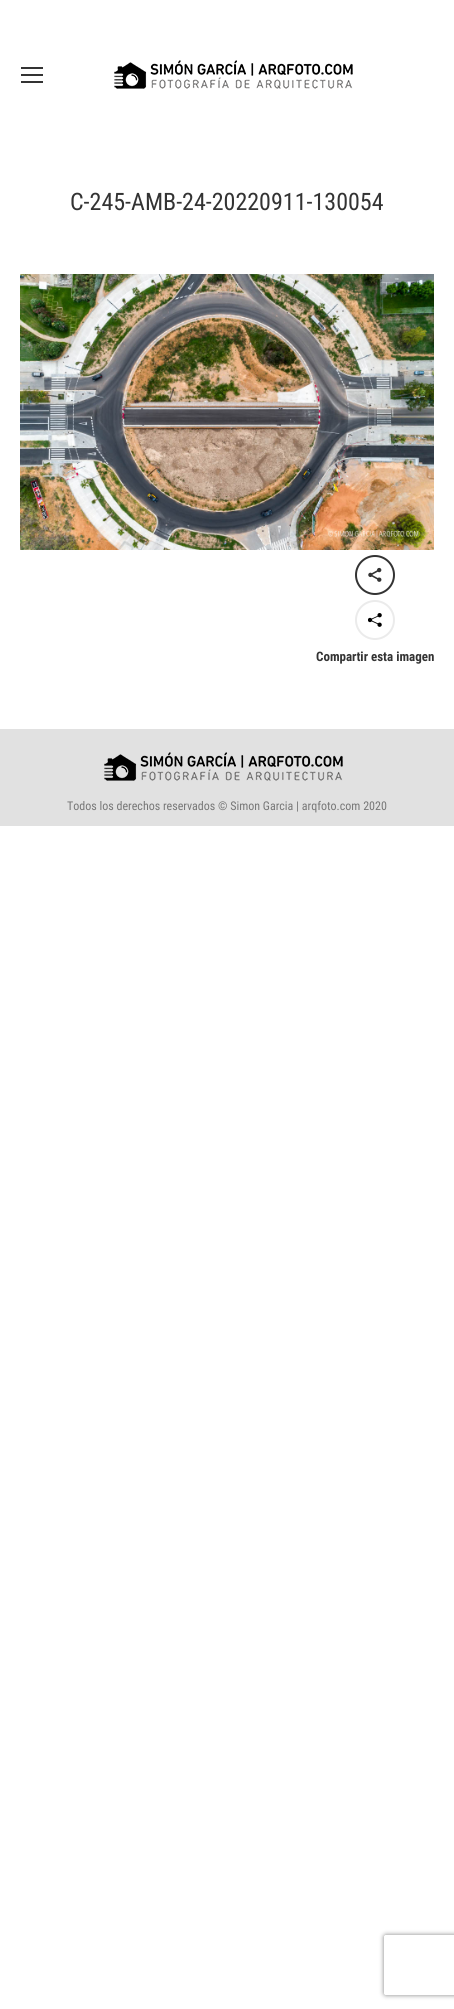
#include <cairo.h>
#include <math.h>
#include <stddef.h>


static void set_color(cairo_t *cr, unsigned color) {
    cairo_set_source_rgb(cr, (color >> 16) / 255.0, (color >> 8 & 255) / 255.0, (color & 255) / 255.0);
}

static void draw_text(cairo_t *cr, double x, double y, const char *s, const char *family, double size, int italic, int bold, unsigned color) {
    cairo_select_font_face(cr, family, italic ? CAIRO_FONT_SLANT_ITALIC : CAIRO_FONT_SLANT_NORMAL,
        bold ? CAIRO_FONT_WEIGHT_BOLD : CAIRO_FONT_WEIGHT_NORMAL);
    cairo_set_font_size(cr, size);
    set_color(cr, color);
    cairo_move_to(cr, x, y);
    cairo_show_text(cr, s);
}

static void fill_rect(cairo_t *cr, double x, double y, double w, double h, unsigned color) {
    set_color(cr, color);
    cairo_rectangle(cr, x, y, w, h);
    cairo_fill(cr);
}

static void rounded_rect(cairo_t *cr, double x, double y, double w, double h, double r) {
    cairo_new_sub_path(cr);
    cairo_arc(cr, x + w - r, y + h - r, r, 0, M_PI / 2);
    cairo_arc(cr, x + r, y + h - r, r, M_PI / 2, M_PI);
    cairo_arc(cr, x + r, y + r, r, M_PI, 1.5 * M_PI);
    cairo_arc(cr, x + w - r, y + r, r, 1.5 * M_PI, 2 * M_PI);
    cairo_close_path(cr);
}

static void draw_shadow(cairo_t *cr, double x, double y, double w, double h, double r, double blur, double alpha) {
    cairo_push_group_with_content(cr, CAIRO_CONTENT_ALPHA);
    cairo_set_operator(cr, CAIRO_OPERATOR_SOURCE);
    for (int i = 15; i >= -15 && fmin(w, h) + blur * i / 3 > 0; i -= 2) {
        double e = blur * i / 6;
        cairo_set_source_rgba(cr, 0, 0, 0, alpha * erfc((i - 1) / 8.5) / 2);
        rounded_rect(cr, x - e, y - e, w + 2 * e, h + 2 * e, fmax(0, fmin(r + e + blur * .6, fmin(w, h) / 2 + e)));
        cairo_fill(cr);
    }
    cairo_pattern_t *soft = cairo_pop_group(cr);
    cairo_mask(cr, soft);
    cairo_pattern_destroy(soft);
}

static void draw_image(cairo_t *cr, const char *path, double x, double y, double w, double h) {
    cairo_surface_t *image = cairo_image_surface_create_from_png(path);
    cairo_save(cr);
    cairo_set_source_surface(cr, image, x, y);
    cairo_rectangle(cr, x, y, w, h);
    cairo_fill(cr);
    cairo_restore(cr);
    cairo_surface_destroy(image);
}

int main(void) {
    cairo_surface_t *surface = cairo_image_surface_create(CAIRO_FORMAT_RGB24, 454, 2009);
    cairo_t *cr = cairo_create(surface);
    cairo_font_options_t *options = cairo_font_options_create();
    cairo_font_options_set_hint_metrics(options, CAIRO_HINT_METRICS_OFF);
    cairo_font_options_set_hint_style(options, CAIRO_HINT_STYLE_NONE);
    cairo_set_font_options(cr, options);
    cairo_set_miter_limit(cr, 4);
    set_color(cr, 0xFFFFFF);
    cairo_paint(cr);
    fill_rect(cr, 21, 67, 22, 2, 0x333333);
    fill_rect(cr, 21, 74, 22, 2, 0x333333);
    fill_rect(cr, 21, 81, 22, 2, 0x333333);
    draw_image(cr, "assets/img1.png", 114, 60, 239, 29);
    draw_text(cr, 70, 210, "C-245-AMB-24-20220911-130054", "Roboto Condensed", 24, 0, 0, 0x333333);
    draw_image(cr, "assets/img2.png", 20, 274, 414, 276);
    cairo_arc(cr, 375, 575, 19, 0, 2 * M_PI);
    cairo_stroke(cr);
    draw_image(cr, "assets/img3.png", 368, 567, 14, 15);
    cairo_arc(cr, 375, 620, 19, 0, 2 * M_PI);
    set_color(cr, 0xEBEBEB);
    cairo_stroke(cr);
    draw_image(cr, "assets/img4.png", 368, 613, 14, 14);
    draw_text(cr, 316, 661, "Compartir esta imagen", "Roboto Condensed", 13, 0, 1, 0x333333);
    fill_rect(cr, 0, 729, 454, 97, 0xE1E1E1);
    draw_image(cr, "assets/img5.png", 104, 752, 239, 29);
    draw_text(cr, 67, 810, "Todos los derechos reservados © Simon Garcia | arqfoto.com 2020", "Roboto Condensed", 12, 0, 0, 0x777777);
    cairo_save(cr);
    cairo_set_fill_rule(cr, CAIRO_FILL_RULE_EVEN_ODD);
    cairo_new_path(cr);
    cairo_move_to(cr, 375, 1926);
    cairo_line_to(cr, 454, 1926);
    cairo_line_to(cr, 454, 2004);
    cairo_line_to(cr, 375, 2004);
    cairo_close_path(cr);
    cairo_move_to(cr, 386, 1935);
    cairo_line_to(cr, 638, 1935);
    cairo_curve_to(cr, 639, 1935, 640, 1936, 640, 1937);
    cairo_line_to(cr, 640, 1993);
    cairo_curve_to(cr, 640, 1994, 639, 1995, 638, 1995);
    cairo_line_to(cr, 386, 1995);
    cairo_curve_to(cr, 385, 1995, 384, 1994, 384, 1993);
    cairo_line_to(cr, 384, 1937);
    cairo_curve_to(cr, 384, 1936, 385, 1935, 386, 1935);
    cairo_close_path(cr);
    cairo_clip(cr);
    set_color(cr, 0x808080);
    draw_shadow(cr, 384, 1935, 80, 60, 2, 2.5, 1);
    cairo_restore(cr);
    cairo_surface_write_to_png(surface, "output.png");
    cairo_font_options_destroy(options);
    cairo_destroy(cr);
    cairo_surface_destroy(surface);
    return 0;
}
